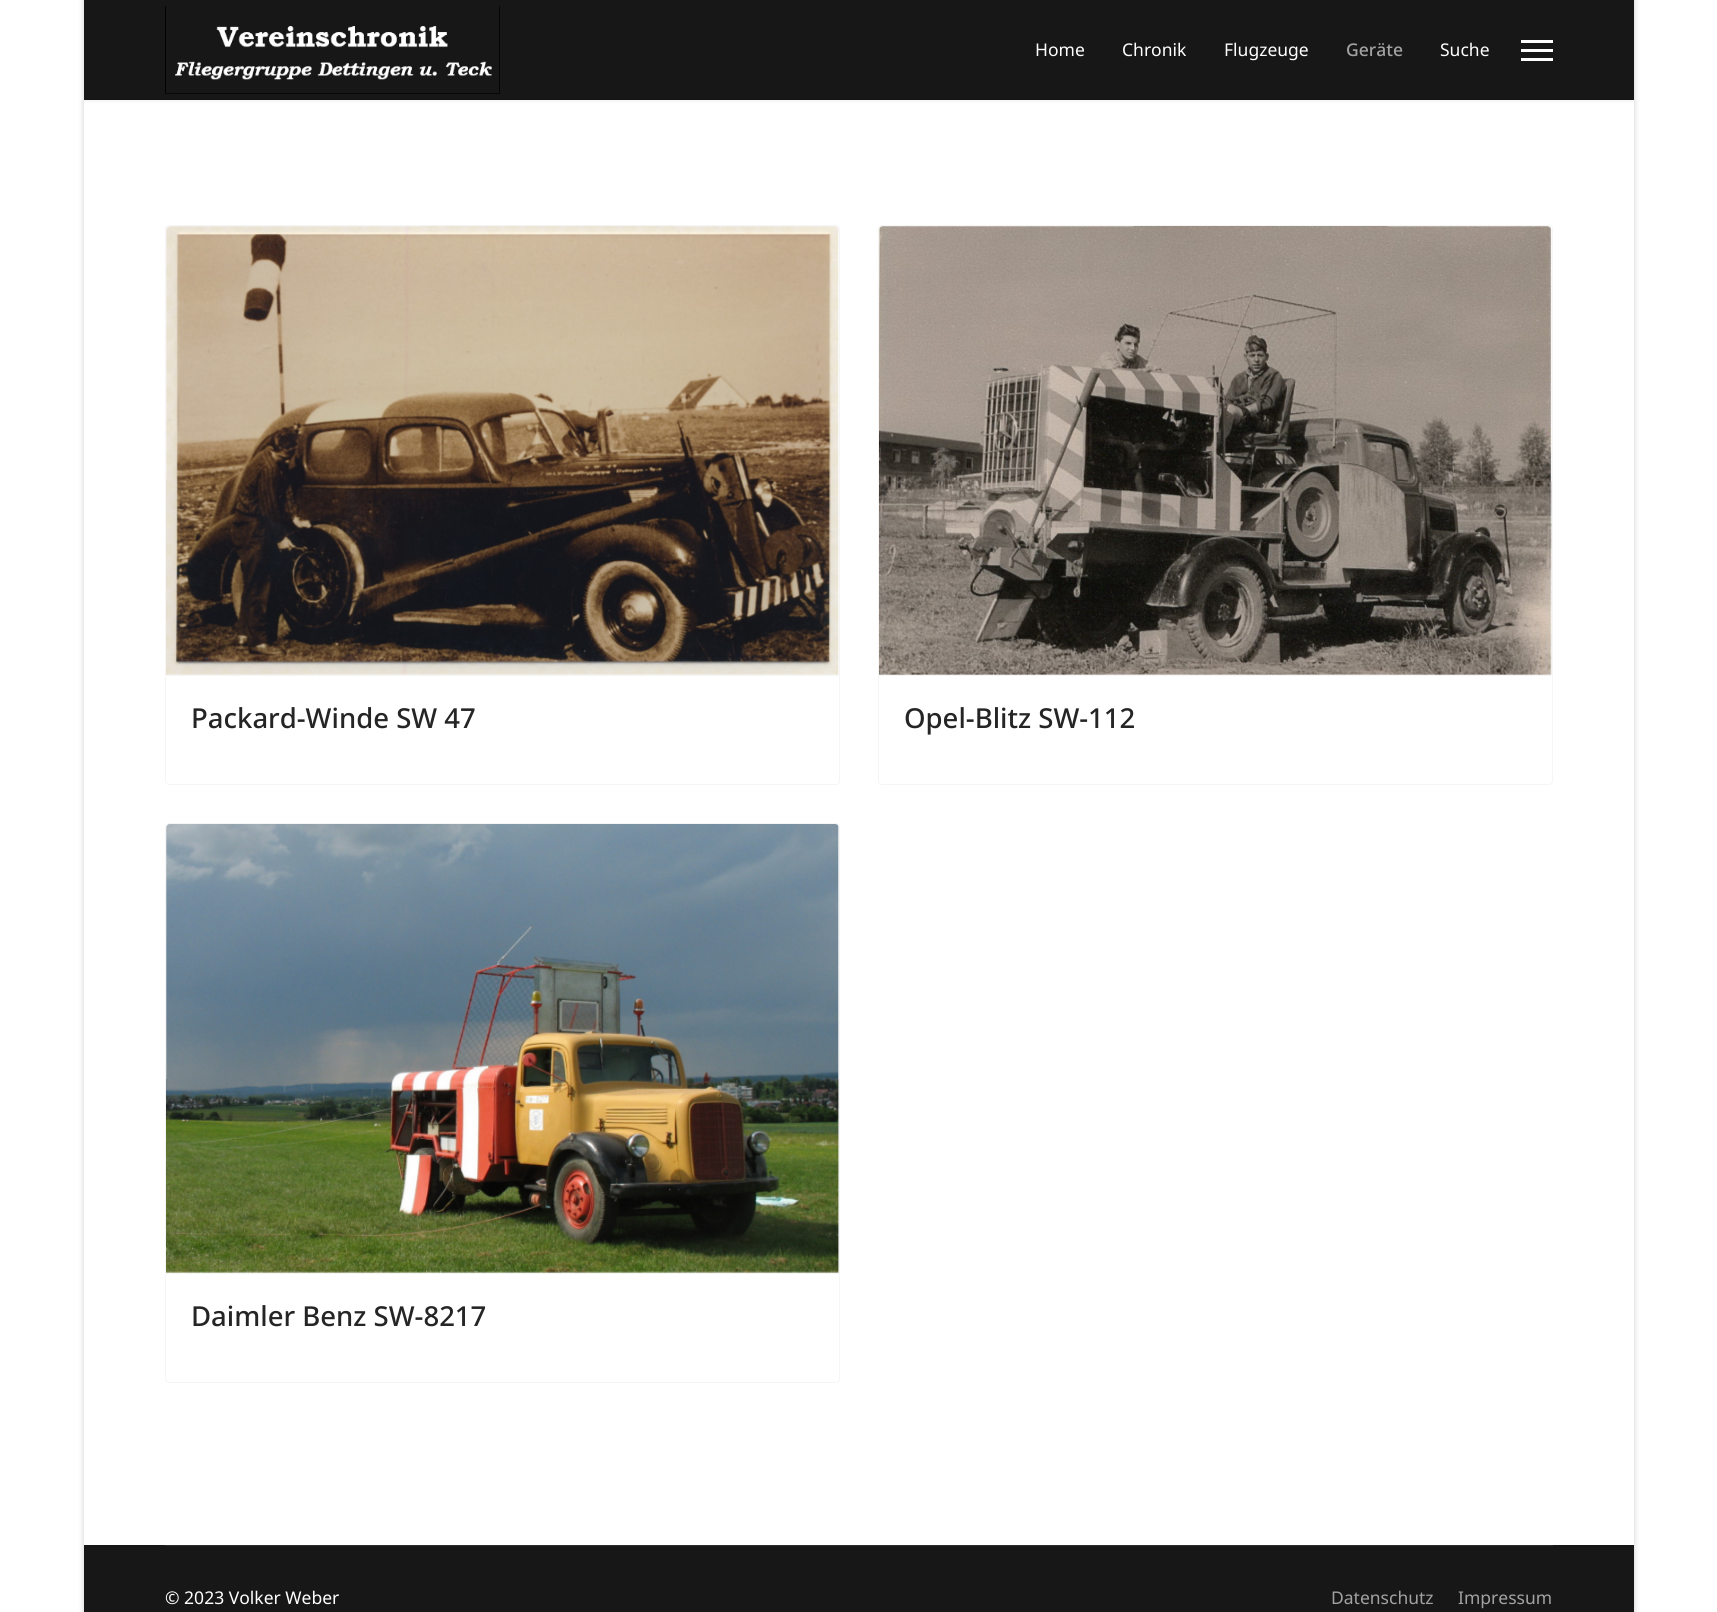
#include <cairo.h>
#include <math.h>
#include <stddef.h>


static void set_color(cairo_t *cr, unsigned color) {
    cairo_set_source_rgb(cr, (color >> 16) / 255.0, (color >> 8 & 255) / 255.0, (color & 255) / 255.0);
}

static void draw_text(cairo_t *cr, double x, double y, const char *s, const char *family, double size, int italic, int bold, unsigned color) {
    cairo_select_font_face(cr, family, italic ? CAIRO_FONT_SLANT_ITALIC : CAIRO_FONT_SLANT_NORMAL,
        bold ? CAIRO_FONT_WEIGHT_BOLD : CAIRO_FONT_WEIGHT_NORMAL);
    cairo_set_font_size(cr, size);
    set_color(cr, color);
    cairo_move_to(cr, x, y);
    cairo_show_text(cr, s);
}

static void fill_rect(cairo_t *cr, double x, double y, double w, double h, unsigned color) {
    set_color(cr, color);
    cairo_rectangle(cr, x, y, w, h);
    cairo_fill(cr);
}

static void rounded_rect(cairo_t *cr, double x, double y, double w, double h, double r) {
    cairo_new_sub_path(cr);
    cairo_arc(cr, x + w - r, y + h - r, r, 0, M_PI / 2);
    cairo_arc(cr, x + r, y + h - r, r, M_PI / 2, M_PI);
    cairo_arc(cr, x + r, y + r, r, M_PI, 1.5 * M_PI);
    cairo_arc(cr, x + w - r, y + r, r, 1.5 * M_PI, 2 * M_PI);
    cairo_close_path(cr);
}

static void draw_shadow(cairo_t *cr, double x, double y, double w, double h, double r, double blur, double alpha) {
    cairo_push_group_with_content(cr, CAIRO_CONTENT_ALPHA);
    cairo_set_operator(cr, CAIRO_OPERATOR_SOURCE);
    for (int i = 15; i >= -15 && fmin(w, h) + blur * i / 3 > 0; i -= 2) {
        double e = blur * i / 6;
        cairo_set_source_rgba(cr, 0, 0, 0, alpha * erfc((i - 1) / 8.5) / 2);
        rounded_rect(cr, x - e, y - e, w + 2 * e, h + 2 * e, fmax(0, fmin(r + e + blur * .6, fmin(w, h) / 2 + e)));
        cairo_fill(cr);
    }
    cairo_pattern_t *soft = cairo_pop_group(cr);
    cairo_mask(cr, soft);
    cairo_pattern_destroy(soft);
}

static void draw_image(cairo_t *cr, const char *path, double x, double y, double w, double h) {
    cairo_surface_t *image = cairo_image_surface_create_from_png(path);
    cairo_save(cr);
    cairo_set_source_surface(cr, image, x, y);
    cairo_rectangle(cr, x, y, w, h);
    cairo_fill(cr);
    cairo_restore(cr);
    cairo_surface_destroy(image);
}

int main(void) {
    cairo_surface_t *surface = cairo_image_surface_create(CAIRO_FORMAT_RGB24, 1717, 1612);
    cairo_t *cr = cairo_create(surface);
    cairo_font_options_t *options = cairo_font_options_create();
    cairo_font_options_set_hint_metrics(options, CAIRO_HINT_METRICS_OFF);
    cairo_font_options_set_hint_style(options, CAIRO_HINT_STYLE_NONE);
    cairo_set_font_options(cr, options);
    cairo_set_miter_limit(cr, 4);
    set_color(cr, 0xFFFFFF);
    cairo_paint(cr);
    set_color(cr, 0x000000);
    draw_shadow(cr, 84, 0, 1550, 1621, 0, 3, 0.2);
    fill_rect(cr, 84, 100, 1550, 1445, 0xFFFFFF);
    cairo_save(cr);
    cairo_rectangle(cr, 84, 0, 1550, 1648);
    cairo_clip(cr);
    set_color(cr, 0x000000);
    draw_shadow(cr, 84, 0, 1550, 100, 0, 2.5, 0.1);
    cairo_restore(cr);
    fill_rect(cr, 84, 0, 1550, 100, 0x171717);
    draw_image(cr, "assets/img1.png", 165, 6, 335, 88);
    draw_text(cr, 1035, 56, "Home", "Noto Sans", 17.5, 0, 0, 0xFFFFFF);
    draw_text(cr, 1122, 56, "Chronik", "Noto Sans", 17.5, 0, 0, 0xFFFFFF);
    draw_text(cr, 1224, 56, "Flugzeuge", "Noto Sans", 17.5, 0, 0, 0xFFFFFF);
    draw_text(cr, 1346, 56, "Geräte", "Noto Sans Medium", 17.5, 0, 0, 0xA2A2A2);
    draw_text(cr, 1440, 56, "Suche", "Noto Sans", 17.5, 0, 0, 0xFFFFFF);
    fill_rect(cr, 1521, 40, 32, 3, 0xFFFFFF);
    fill_rect(cr, 1521, 49, 32, 3, 0xFFFFFF);
    fill_rect(cr, 1521, 58, 32, 3, 0xFFFFFF);
    rounded_rect(cr, 165.5, 225.5, 674, 559, 3.5);
    set_color(cr, 0xF5F5F5);
    cairo_set_line_width(cr, 1);
    cairo_stroke(cr);
    fill_rect(cr, 166, 675, 673, 1, 0xF5F5F5);
    draw_image(cr, "assets/img2.png", 166, 226, 673, 449);
    draw_text(cr, 191, 728, "Packard-Winde SW 47", "Noto Sans Medium", 27.5, 0, 0, 0x252525);
    rounded_rect(cr, 878.5, 225.5, 674, 559, 3.5);
    set_color(cr, 0xF5F5F5);
    cairo_stroke(cr);
    fill_rect(cr, 879, 675, 672, 1, 0xF5F5F5);
    draw_image(cr, "assets/img3.png", 879, 226, 673, 449);
    draw_text(cr, 904, 728, "Opel-Blitz SW-112", "Noto Sans Medium", 27.5, 0, 0, 0x252525);
    rounded_rect(cr, 165.5, 823.5, 674, 559, 3.5);
    set_color(cr, 0xF5F5F5);
    cairo_stroke(cr);
    fill_rect(cr, 166, 1273, 673, 1, 0xF5F5F5);
    draw_image(cr, "assets/img4.png", 166, 824, 673, 449);
    draw_text(cr, 191, 1326, "Daimler Benz SW-8217", "Noto Sans Medium", 27.5, 0, 0, 0x252525);
    fill_rect(cr, 84, 1545, 1550, 67, 0x171717);
    fill_rect(cr, 165, 1545, 1388, 1, 0x2E2E2E);
    draw_text(cr, 165, 1604, "© 2023 Volker Weber", "Noto Sans", 17.5, 0, 0, 0xFFFFFF);
    draw_text(cr, 1331, 1604, "Datenschutz", "Noto Sans", 17.5, 0, 0, 0xA2A2A2);
    draw_text(cr, 1458, 1604, "Impressum", "Noto Sans", 17.5, 0, 0, 0xA2A2A2);
    cairo_surface_write_to_png(surface, "output.png");
    cairo_font_options_destroy(options);
    cairo_destroy(cr);
    cairo_surface_destroy(surface);
    return 0;
}
